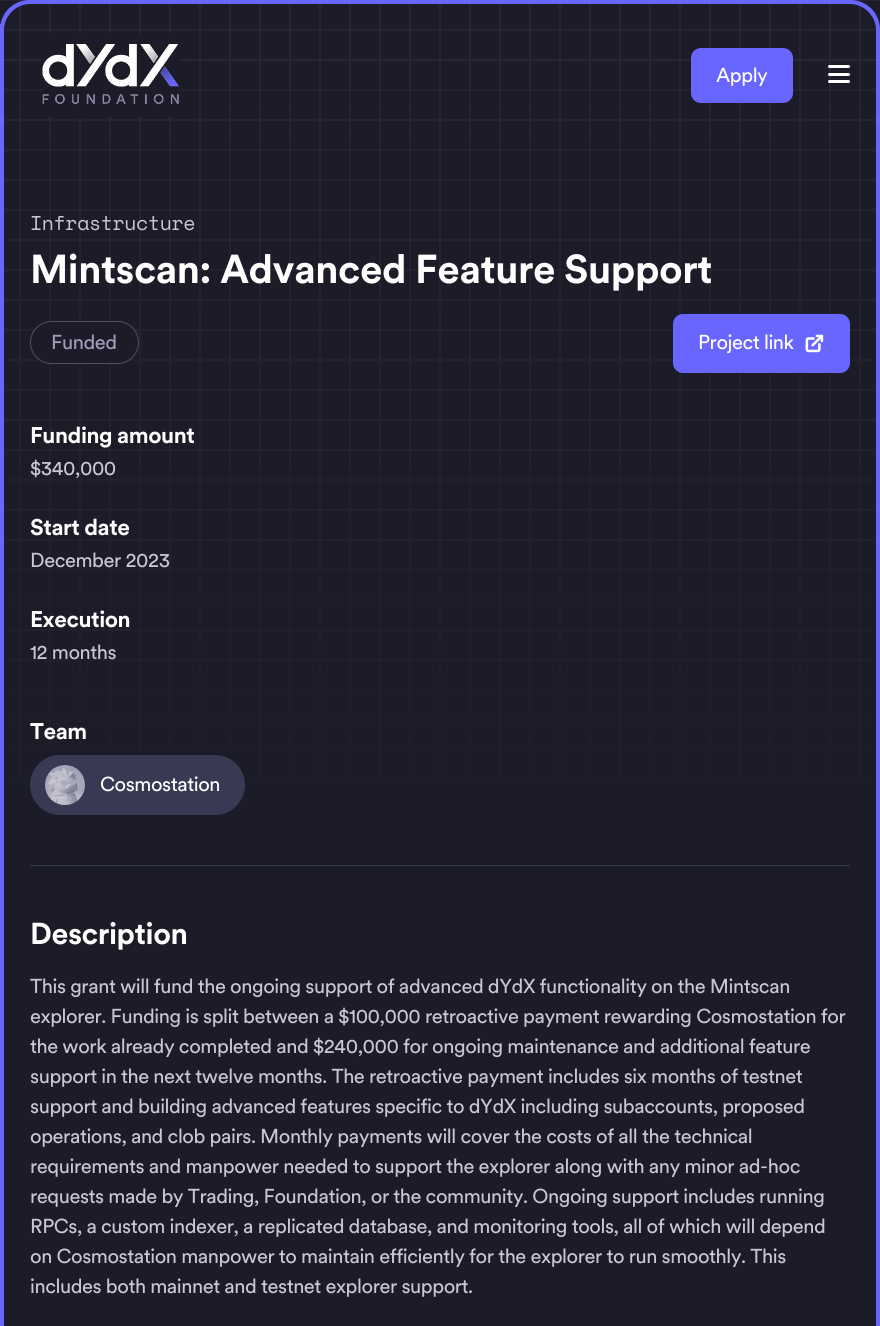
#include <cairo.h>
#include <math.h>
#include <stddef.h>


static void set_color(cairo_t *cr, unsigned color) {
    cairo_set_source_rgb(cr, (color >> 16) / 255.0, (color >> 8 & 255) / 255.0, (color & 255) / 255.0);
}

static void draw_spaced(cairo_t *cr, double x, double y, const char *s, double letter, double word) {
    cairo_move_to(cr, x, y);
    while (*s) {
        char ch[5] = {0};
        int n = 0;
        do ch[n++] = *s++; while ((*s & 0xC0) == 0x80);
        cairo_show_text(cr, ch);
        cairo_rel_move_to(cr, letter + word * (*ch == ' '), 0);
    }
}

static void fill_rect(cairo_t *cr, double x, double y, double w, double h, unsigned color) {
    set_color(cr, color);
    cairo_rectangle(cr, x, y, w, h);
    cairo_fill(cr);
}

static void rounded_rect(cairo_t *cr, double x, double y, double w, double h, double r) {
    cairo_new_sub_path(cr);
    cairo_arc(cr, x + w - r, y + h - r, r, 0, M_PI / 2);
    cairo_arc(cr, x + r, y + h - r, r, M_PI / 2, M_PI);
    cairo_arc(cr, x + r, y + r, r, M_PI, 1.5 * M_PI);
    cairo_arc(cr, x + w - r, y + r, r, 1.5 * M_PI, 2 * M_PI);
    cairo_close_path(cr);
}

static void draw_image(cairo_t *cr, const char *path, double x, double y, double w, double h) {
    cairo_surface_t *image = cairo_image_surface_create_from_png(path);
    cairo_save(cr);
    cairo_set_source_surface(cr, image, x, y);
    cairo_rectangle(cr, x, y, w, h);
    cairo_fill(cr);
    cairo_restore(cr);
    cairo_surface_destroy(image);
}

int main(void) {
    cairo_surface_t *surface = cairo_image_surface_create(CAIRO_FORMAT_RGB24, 880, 1326);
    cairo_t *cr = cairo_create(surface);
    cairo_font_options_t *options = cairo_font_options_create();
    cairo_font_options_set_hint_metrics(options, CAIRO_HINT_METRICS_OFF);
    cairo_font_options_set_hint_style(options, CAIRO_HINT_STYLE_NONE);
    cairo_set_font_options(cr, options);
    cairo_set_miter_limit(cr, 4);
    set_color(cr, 0x1C1C28);
    cairo_paint(cr);
    draw_image(cr, "assets/img1.png", 0, 0, 880, 781);
    fill_rect(cr, 0, 24, 4, 1302, 0x6966FF);
    fill_rect(cr, 876, 150, 4, 1176, 0x6966FF);
    cairo_set_fill_rule(cr, CAIRO_FILL_RULE_EVEN_ODD);
    cairo_new_path(cr);
    cairo_move_to(cr, 30, 0);
    cairo_line_to(cr, 850, 0);
    cairo_curve_to(cr, 867, 0, 880, 13, 880, 30);
    cairo_line_to(cr, 880, 150);
    cairo_line_to(cr, 0, 150);
    cairo_line_to(cr, 0, 30);
    cairo_curve_to(cr, 0, 13, 13, 0, 30, 0);
    cairo_close_path(cr);
    cairo_move_to(cr, 30, 4);
    cairo_line_to(cr, 850, 4);
    cairo_curve_to(cr, 864, 4, 876, 16, 876, 30);
    cairo_line_to(cr, 876, 150);
    cairo_line_to(cr, 4, 150);
    cairo_line_to(cr, 4, 30);
    cairo_curve_to(cr, 4, 16, 16, 4, 30, 4);
    cairo_close_path(cr);
    cairo_fill(cr);
    draw_image(cr, "assets/img2.png", 42, 34, 138, 82);
    rounded_rect(cr, 691, 48, 102, 55, 10);
    cairo_fill(cr);
    cairo_select_font_face(cr, "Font", CAIRO_FONT_SLANT_NORMAL, CAIRO_FONT_WEIGHT_NORMAL);
    cairo_set_font_size(cr, 20);
    set_color(cr, 0xFFFFFF);
    draw_spaced(cr, 716, 82, "Apply", -0.45, 0);
    rounded_rect(cr, 828, 65, 22, 3, 1.5);
    cairo_fill(cr);
    rounded_rect(cr, 828, 73, 22, 3, 1.5);
    cairo_fill(cr);
    rounded_rect(cr, 828, 80, 22, 3, 1.5);
    cairo_fill(cr);
    cairo_select_font_face(cr, "Space Mono", CAIRO_FONT_SLANT_NORMAL, CAIRO_FONT_WEIGHT_NORMAL);
    set_color(cr, 0xC8C7D8);
    draw_spaced(cr, 30, 230, "Infrastructure", -0.45, 0);
    cairo_select_font_face(cr, "Font", CAIRO_FONT_SLANT_NORMAL, CAIRO_FONT_WEIGHT_BOLD);
    cairo_set_font_size(cr, 40);
    set_color(cr, 0xFFFFFF);
    draw_spaced(cr, 30, 283, "Mintscan: Advanced Feature Support", -0.45, 0);
    fill_rect(cr, 30, 865, 820, 1, 0x393953);
    set_color(cr, 0x1C1C28);
    rounded_rect(cr, 30.5, 321.5, 108, 42, 21);
    cairo_fill_preserve(cr);
    set_color(cr, 0x4F4C64);
    cairo_set_line_width(cr, 1);
    cairo_stroke(cr);
    cairo_select_font_face(cr, "Font", CAIRO_FONT_SLANT_NORMAL, CAIRO_FONT_WEIGHT_NORMAL);
    cairo_set_font_size(cr, 20);
    set_color(cr, 0xA59EBA);
    draw_spaced(cr, 51, 349, "Funded", -0.45, 0);
    set_color(cr, 0x6966FF);
    rounded_rect(cr, 673, 314, 177, 59, 10);
    cairo_fill(cr);
    set_color(cr, 0xFFFFFF);
    draw_spaced(cr, 698, 349, "Project link", -0.45, 0);
    draw_image(cr, "assets/img3.png", 805, 334, 19, 19);
    cairo_select_font_face(cr, "Font", CAIRO_FONT_SLANT_NORMAL, CAIRO_FONT_WEIGHT_BOLD);
    cairo_set_font_size(cr, 22.5);
    draw_spaced(cr, 30, 443, "Funding amount", -0.45, 0);
    cairo_select_font_face(cr, "Font", CAIRO_FONT_SLANT_NORMAL, CAIRO_FONT_WEIGHT_NORMAL);
    cairo_set_font_size(cr, 20);
    set_color(cr, 0xC8C7D8);
    draw_spaced(cr, 30, 475, "$340,000", -0.45, 0);
    cairo_select_font_face(cr, "Font", CAIRO_FONT_SLANT_NORMAL, CAIRO_FONT_WEIGHT_BOLD);
    cairo_set_font_size(cr, 22.5);
    set_color(cr, 0xFFFFFF);
    draw_spaced(cr, 30, 535, "Start date", -0.45, 0);
    cairo_select_font_face(cr, "Font", CAIRO_FONT_SLANT_NORMAL, CAIRO_FONT_WEIGHT_NORMAL);
    cairo_set_font_size(cr, 20);
    set_color(cr, 0xC8C7D8);
    draw_spaced(cr, 30, 567, "December 2023", -0.45, 0);
    cairo_select_font_face(cr, "Font", CAIRO_FONT_SLANT_NORMAL, CAIRO_FONT_WEIGHT_BOLD);
    cairo_set_font_size(cr, 22.5);
    set_color(cr, 0xFFFFFF);
    draw_spaced(cr, 30, 627, "Execution", -0.45, 0);
    cairo_select_font_face(cr, "Font", CAIRO_FONT_SLANT_NORMAL, CAIRO_FONT_WEIGHT_NORMAL);
    cairo_set_font_size(cr, 20);
    set_color(cr, 0xC8C7D8);
    draw_spaced(cr, 30, 659, "12 months", -0.45, 0);
    cairo_select_font_face(cr, "Font", CAIRO_FONT_SLANT_NORMAL, CAIRO_FONT_WEIGHT_BOLD);
    cairo_set_font_size(cr, 22.5);
    set_color(cr, 0xFFFFFF);
    draw_spaced(cr, 30, 739, "Team", -0.45, 0);
    set_color(cr, 0x393953);
    rounded_rect(cr, 30, 755, 215, 60, 30);
    cairo_fill(cr);
    draw_image(cr, "assets/img4.png", 45, 765, 40, 40);
    cairo_select_font_face(cr, "Font", CAIRO_FONT_SLANT_NORMAL, CAIRO_FONT_WEIGHT_NORMAL);
    cairo_set_font_size(cr, 20);
    set_color(cr, 0xFFFFFF);
    draw_spaced(cr, 100, 791, "Cosmostation", -0.45, 0);
    cairo_select_font_face(cr, "Font", CAIRO_FONT_SLANT_NORMAL, CAIRO_FONT_WEIGHT_BOLD);
    cairo_set_font_size(cr, 30);
    draw_spaced(cr, 30, 944, "Description", -0.45, 0);
    cairo_select_font_face(cr, "Font", CAIRO_FONT_SLANT_NORMAL, CAIRO_FONT_WEIGHT_NORMAL);
    cairo_set_font_size(cr, 20);
    set_color(cr, 0xC8C7D8);
    draw_spaced(cr, 30, 993, "This grant will fund the ongoing support of advanced dYdX functionality on the Mintscan", -0.45, 0);
    draw_spaced(cr, 30, 1023, "explorer. Funding is split between a $100,000 retroactive payment rewarding Cosmostation for", -0.45, 0);
    draw_spaced(cr, 30, 1053, "the work already completed and $240,000 for ongoing maintenance and additional feature", -0.45, 0);
    draw_spaced(cr, 30, 1083, "support in the next twelve months. The retroactive payment includes six months of testnet", -0.45, 0);
    draw_spaced(cr, 30, 1113, "support and building advanced features specific to dYdX including subaccounts, proposed", -0.45, 0);
    draw_spaced(cr, 30, 1143, "operations, and clob pairs. Monthly payments will cover the costs of all the technical", -0.45, 0);
    draw_spaced(cr, 30, 1173, "requirements and manpower needed to support the explorer along with any minor ad-hoc", -0.45, 0);
    draw_spaced(cr, 30, 1203, "requests made by Trading, Foundation, or the community. Ongoing support includes running", -0.45, 0);
    draw_spaced(cr, 30, 1233, "RPCs, a custom indexer, a replicated database, and monitoring tools, all of which will depend", -0.45, 0);
    draw_spaced(cr, 30, 1263, "on Cosmostation manpower to maintain efficiently for the explorer to run smoothly. This", -0.45, 0);
    draw_spaced(cr, 30, 1293, "includes both mainnet and testnet explorer support.", -0.45, 0);
    cairo_surface_write_to_png(surface, "output.png");
    cairo_font_options_destroy(options);
    cairo_destroy(cr);
    cairo_surface_destroy(surface);
    return 0;
}
